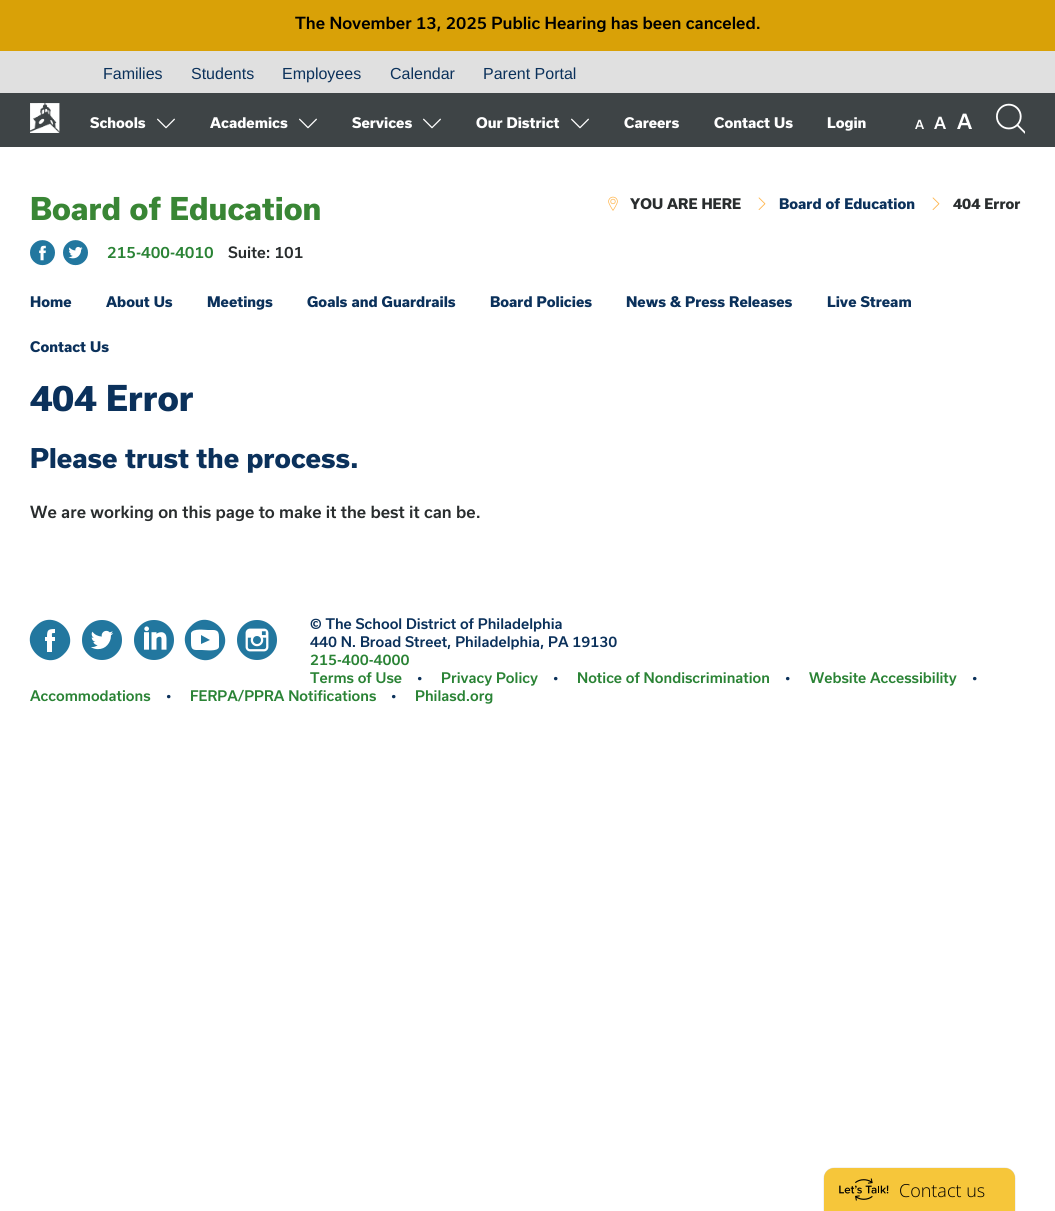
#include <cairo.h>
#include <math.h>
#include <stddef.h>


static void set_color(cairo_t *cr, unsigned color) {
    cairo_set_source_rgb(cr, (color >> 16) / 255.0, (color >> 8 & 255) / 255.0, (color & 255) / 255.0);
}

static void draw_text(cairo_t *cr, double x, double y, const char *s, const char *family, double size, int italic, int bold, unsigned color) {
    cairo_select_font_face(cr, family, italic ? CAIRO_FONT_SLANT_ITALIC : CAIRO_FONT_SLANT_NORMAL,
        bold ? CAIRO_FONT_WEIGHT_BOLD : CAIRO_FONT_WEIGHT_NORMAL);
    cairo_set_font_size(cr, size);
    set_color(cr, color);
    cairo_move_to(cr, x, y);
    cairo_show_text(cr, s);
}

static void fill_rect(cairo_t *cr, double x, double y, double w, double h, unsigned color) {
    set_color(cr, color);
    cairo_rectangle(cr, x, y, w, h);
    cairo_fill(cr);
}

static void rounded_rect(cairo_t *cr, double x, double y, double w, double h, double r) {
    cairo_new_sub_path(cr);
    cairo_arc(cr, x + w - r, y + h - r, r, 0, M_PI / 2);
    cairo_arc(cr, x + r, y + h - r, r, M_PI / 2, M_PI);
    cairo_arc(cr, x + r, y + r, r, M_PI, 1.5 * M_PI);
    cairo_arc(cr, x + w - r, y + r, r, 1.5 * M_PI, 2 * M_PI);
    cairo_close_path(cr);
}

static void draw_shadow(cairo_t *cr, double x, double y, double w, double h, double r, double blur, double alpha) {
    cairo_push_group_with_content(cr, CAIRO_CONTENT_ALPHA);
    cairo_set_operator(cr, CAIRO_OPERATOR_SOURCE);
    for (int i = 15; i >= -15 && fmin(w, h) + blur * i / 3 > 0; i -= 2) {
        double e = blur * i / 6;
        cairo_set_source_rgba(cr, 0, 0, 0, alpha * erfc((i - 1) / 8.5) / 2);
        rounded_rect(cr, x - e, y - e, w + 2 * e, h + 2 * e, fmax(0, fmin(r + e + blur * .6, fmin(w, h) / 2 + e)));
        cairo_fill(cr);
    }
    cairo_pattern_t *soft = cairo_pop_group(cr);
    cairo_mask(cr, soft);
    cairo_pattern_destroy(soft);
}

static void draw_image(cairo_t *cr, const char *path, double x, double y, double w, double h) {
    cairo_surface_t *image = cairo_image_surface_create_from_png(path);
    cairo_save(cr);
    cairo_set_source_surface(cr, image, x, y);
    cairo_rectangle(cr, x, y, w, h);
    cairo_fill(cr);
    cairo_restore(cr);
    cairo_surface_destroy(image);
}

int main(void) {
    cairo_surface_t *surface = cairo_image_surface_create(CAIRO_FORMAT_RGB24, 1055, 1211);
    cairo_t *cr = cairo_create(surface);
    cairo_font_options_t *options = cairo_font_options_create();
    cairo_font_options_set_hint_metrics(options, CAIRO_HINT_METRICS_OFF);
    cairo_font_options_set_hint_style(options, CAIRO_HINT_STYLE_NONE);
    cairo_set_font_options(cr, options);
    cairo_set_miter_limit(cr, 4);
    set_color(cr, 0xFFFFFF);
    cairo_paint(cr);
    fill_rect(cr, 0, 0, 1055, 51, 0xD9A107);
    draw_text(cr, 295, 29, "The November 13, 2025 Public Hearing has been canceled.", "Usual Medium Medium", 16, 0, 0, 0x000000);
    fill_rect(cr, 0, 51, 1055, 42, 0xE0E0E0);
    draw_text(cr, 103, 79, "Families", "Liberation Sans", 16, 0, 0, 0x0B315B);
    draw_text(cr, 191, 79, "Students", "Liberation Sans", 16, 0, 0, 0x0B315B);
    draw_text(cr, 282, 79, "Employees", "Liberation Sans", 16, 0, 0, 0x0B315B);
    draw_text(cr, 390, 79, "Calendar", "Liberation Sans", 16, 0, 0, 0x0B315B);
    draw_text(cr, 483, 79, "Parent Portal", "Liberation Sans", 16, 0, 0, 0x0B315B);
    fill_rect(cr, 0, 93, 1055, 54, 0x3E4446);
    draw_image(cr, "assets/img1.png", 30, 103, 30, 30);
    draw_text(cr, 90, 128, "Schools", "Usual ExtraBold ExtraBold", 14, 0, 0, 0xFFFFFF);
    draw_image(cr, "assets/img2.png", 157, 118, 18, 11);
    draw_text(cr, 210, 128, "Academics", "Usual ExtraBold ExtraBold", 14, 0, 0, 0xFFFFFF);
    draw_image(cr, "assets/img2.png", 299, 118, 18, 11);
    draw_text(cr, 352, 128, "Services", "Usual ExtraBold ExtraBold", 14, 0, 0, 0xFFFFFF);
    draw_image(cr, "assets/img2.png", 423, 118, 18, 11);
    draw_text(cr, 476, 128, "Our District", "Usual ExtraBold ExtraBold", 14, 0, 0, 0xFFFFFF);
    draw_image(cr, "assets/img2.png", 571, 118, 18, 11);
    draw_text(cr, 624, 128, "Careers", "Usual ExtraBold ExtraBold", 14, 0, 0, 0xFFFFFF);
    draw_text(cr, 714, 128, "Contact Us", "Usual ExtraBold ExtraBold", 14, 0, 0, 0xFFFFFF);
    draw_text(cr, 827, 128, "Login", "Usual ExtraBold ExtraBold", 14, 0, 0, 0xFFFFFF);
    draw_text(cr, 915, 129, "A", "Usual Medium Medium", 12, 0, 0, 0xFFFFFF);
    draw_text(cr, 934, 129, "A", "Usual Medium Medium", 16, 0, 0, 0xFFFFFF);
    draw_text(cr, 957, 129, "A", "Usual Medium Medium", 20, 0, 0, 0xFFFFFF);
    draw_image(cr, "assets/img3.png", 996, 103, 29, 31);
    draw_text(cr, 30, 220, "Board of Education", "Usual ExtraBold ExtraBold", 30, 0, 0, 0x398635);
    draw_image(cr, "assets/img4.png", 30, 240, 25, 26);
    draw_image(cr, "assets/img5.png", 63, 240, 25, 26);
    draw_text(cr, 107, 258, "215-400-4010", "Usual Medium Medium", 15, 0, 0, 0x2A8335);
    draw_text(cr, 228, 258, "Suite: 101", "Usual Medium Medium", 15, 0, 0, 0x292D2E);
    draw_image(cr, "assets/img6.png", 608, 196, 10, 15);
    draw_text(cr, 630, 209, "YOU ARE HERE", "Usual ExtraBold ExtraBold", 14, 0, 0, 0x292D2E);
    draw_image(cr, "assets/img7.png", 758, 197, 8, 13);
    draw_text(cr, 779, 209, "Board of Education", "Usual ExtraBold ExtraBold", 14, 0, 0, 0x0B315B);
    draw_image(cr, "assets/img7.png", 932, 197, 8, 13);
    draw_text(cr, 953, 209, "404 Error", "Usual ExtraBold ExtraBold", 14, 0, 0, 0x292D2E);
    draw_text(cr, 30, 307, "Home", "Usual ExtraBold ExtraBold", 14, 0, 0, 0x0B315B);
    draw_text(cr, 106, 307, "About Us", "Usual ExtraBold ExtraBold", 14, 0, 0, 0x0B315B);
    draw_text(cr, 207, 307, "Meetings", "Usual ExtraBold ExtraBold", 14, 0, 0, 0x0B315B);
    draw_text(cr, 307, 307, "Goals and Guardrails", "Usual ExtraBold ExtraBold", 14, 0, 0, 0x0B315B);
    draw_text(cr, 490, 307, "Board Policies", "Usual ExtraBold ExtraBold", 14, 0, 0, 0x0B315B);
    draw_text(cr, 626, 307, "News & Press Releases", "Usual ExtraBold ExtraBold", 14, 0, 0, 0x0B315B);
    draw_text(cr, 827, 307, "Live Stream", "Usual ExtraBold ExtraBold", 14, 0, 0, 0x0B315B);
    draw_text(cr, 30, 352, "Contact Us", "Usual ExtraBold ExtraBold", 14, 0, 0, 0x0B315B);
    draw_text(cr, 30, 411, "404 Error", "Usual ExtraBold ExtraBold", 34, 0, 0, 0x0B315B);
    draw_text(cr, 30, 468, "Please trust the process.", "Usual ExtraBold ExtraBold", 26, 0, 0, 0x0B315B);
    draw_text(cr, 30, 518, "We are working on this page to make it the best it can be.", "Usual Medium Medium", 16, 0, 0, 0x292D2E);
    set_color(cr, 0x22779F);
    cairo_new_path(cr);
    cairo_move_to(cr, 36, 626);
    cairo_curve_to(cr, 54, 607, 83, 636, 64, 654);
    cairo_curve_to(cr, 46, 673, 17, 644, 36, 626);
    cairo_close_path(cr);
    cairo_move_to(cr, 55, 641);
    cairo_line_to(cr, 55, 637);
    cairo_line_to(cr, 52, 637);
    cairo_curve_to(cr, 52, 633, 51, 633, 55, 633);
    cairo_line_to(cr, 55, 629);
    cairo_curve_to(cr, 48, 629, 47, 630, 47, 637);
    cairo_line_to(cr, 45, 637);
    cairo_line_to(cr, 45, 641);
    cairo_line_to(cr, 47, 641);
    cairo_line_to(cr, 47, 652);
    cairo_line_to(cr, 52, 652);
    cairo_line_to(cr, 52, 641);
    cairo_close_path(cr);
    cairo_fill(cr);
    draw_image(cr, "assets/img8.png", 82, 620, 40, 40);
    draw_image(cr, "assets/img9.png", 134, 620, 40, 40);
    cairo_new_path(cr);
    cairo_move_to(cr, 201, 644);
    cairo_line_to(cr, 201, 635);
    cairo_line_to(cr, 210, 640);
    cairo_close_path(cr);
    cairo_move_to(cr, 191, 626);
    cairo_curve_to(cr, 209, 607, 238, 636, 219, 654);
    cairo_curve_to(cr, 201, 673, 172, 644, 191, 626);
    cairo_close_path(cr);
    cairo_move_to(cr, 219, 647);
    cairo_line_to(cr, 219, 637);
    cairo_curve_to(cr, 219, 629, 215, 630, 208, 630);
    cairo_curve_to(cr, 205, 630, 193, 628, 191, 633);
    cairo_line_to(cr, 191, 643);
    cairo_curve_to(cr, 191, 651, 194, 650, 202, 650);
    cairo_curve_to(cr, 205, 650, 218, 652, 219, 647);
    cairo_close_path(cr);
    cairo_fill(cr);
    draw_image(cr, "assets/img10.png", 237, 620, 40, 40);
    draw_text(cr, 310, 629, "© The School District of Philadelphia", "Usual Medium Medium", 14, 0, 0, 0x0B315B);
    draw_text(cr, 310, 647, "440 N. Broad Street, Philadelphia, PA 19130", "Usual Medium Medium", 14, 0, 0, 0x0B315B);
    draw_text(cr, 310, 665, "215-400-4000", "Usual Medium Medium", 14, 0, 0, 0x2A8335);
    draw_text(cr, 310, 683, "Terms of Use", "Usual Medium Medium", 14, 0, 0, 0x2A8335);
    draw_text(cr, 417, 683, "•", "Usual Medium Medium", 14, 0, 0, 0x0B315B);
    draw_text(cr, 441, 683, "Privacy Policy", "Usual Medium Medium", 14, 0, 0, 0x2A8335);
    draw_text(cr, 553, 683, "•", "Usual Medium Medium", 14, 0, 0, 0x0B315B);
    draw_text(cr, 577, 683, "Notice of Nondiscrimination", "Usual Medium Medium", 14, 0, 0, 0x2A8335);
    draw_text(cr, 785, 683, "•", "Usual Medium Medium", 14, 0, 0, 0x0B315B);
    draw_text(cr, 809, 683, "Website Accessibility", "Usual Medium Medium", 14, 0, 0, 0x2A8335);
    draw_text(cr, 972, 683, "•", "Usual Medium Medium", 14, 0, 0, 0x0B315B);
    draw_text(cr, 30, 701, "Accommodations", "Usual Medium Medium", 14, 0, 0, 0x2A8335);
    draw_text(cr, 166, 701, "•", "Usual Medium Medium", 14, 0, 0, 0x0B315B);
    draw_text(cr, 190, 701, "FERPA/PPRA Notifications", "Usual Medium Medium", 14, 0, 0, 0x2A8335);
    draw_text(cr, 391, 701, "•", "Usual Medium Medium", 14, 0, 0, 0x0B315B);
    draw_text(cr, 415, 701, "Philasd.org", "Usual Medium Medium", 14, 0, 0, 0x2A8335);
    set_color(cr, 0x000000);
    draw_shadow(cr, 824, 1168, 191, 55, 10, 0.5, 0.22);
    set_color(cr, 0xF6C63A);
    cairo_new_path(cr);
    cairo_move_to(cr, 834, 1168);
    cairo_line_to(cr, 1005, 1168);
    cairo_curve_to(cr, 1010.5, 1168, 1015, 1172.5, 1015, 1178);
    cairo_line_to(cr, 1015, 1211);
    cairo_line_to(cr, 824, 1211);
    cairo_line_to(cr, 824, 1178);
    cairo_curve_to(cr, 824, 1172.5, 828.5, 1168, 834, 1168);
    cairo_close_path(cr);
    cairo_fill(cr);
    draw_image(cr, "assets/img11.png", 839, 1178, 50, 23);
    draw_text(cr, 899, 1197, "Contact us", "Open Sans Light", 18, 0, 0, 0x000000);
    cairo_surface_write_to_png(surface, "output.png");
    cairo_font_options_destroy(options);
    cairo_destroy(cr);
    cairo_surface_destroy(surface);
    return 0;
}
